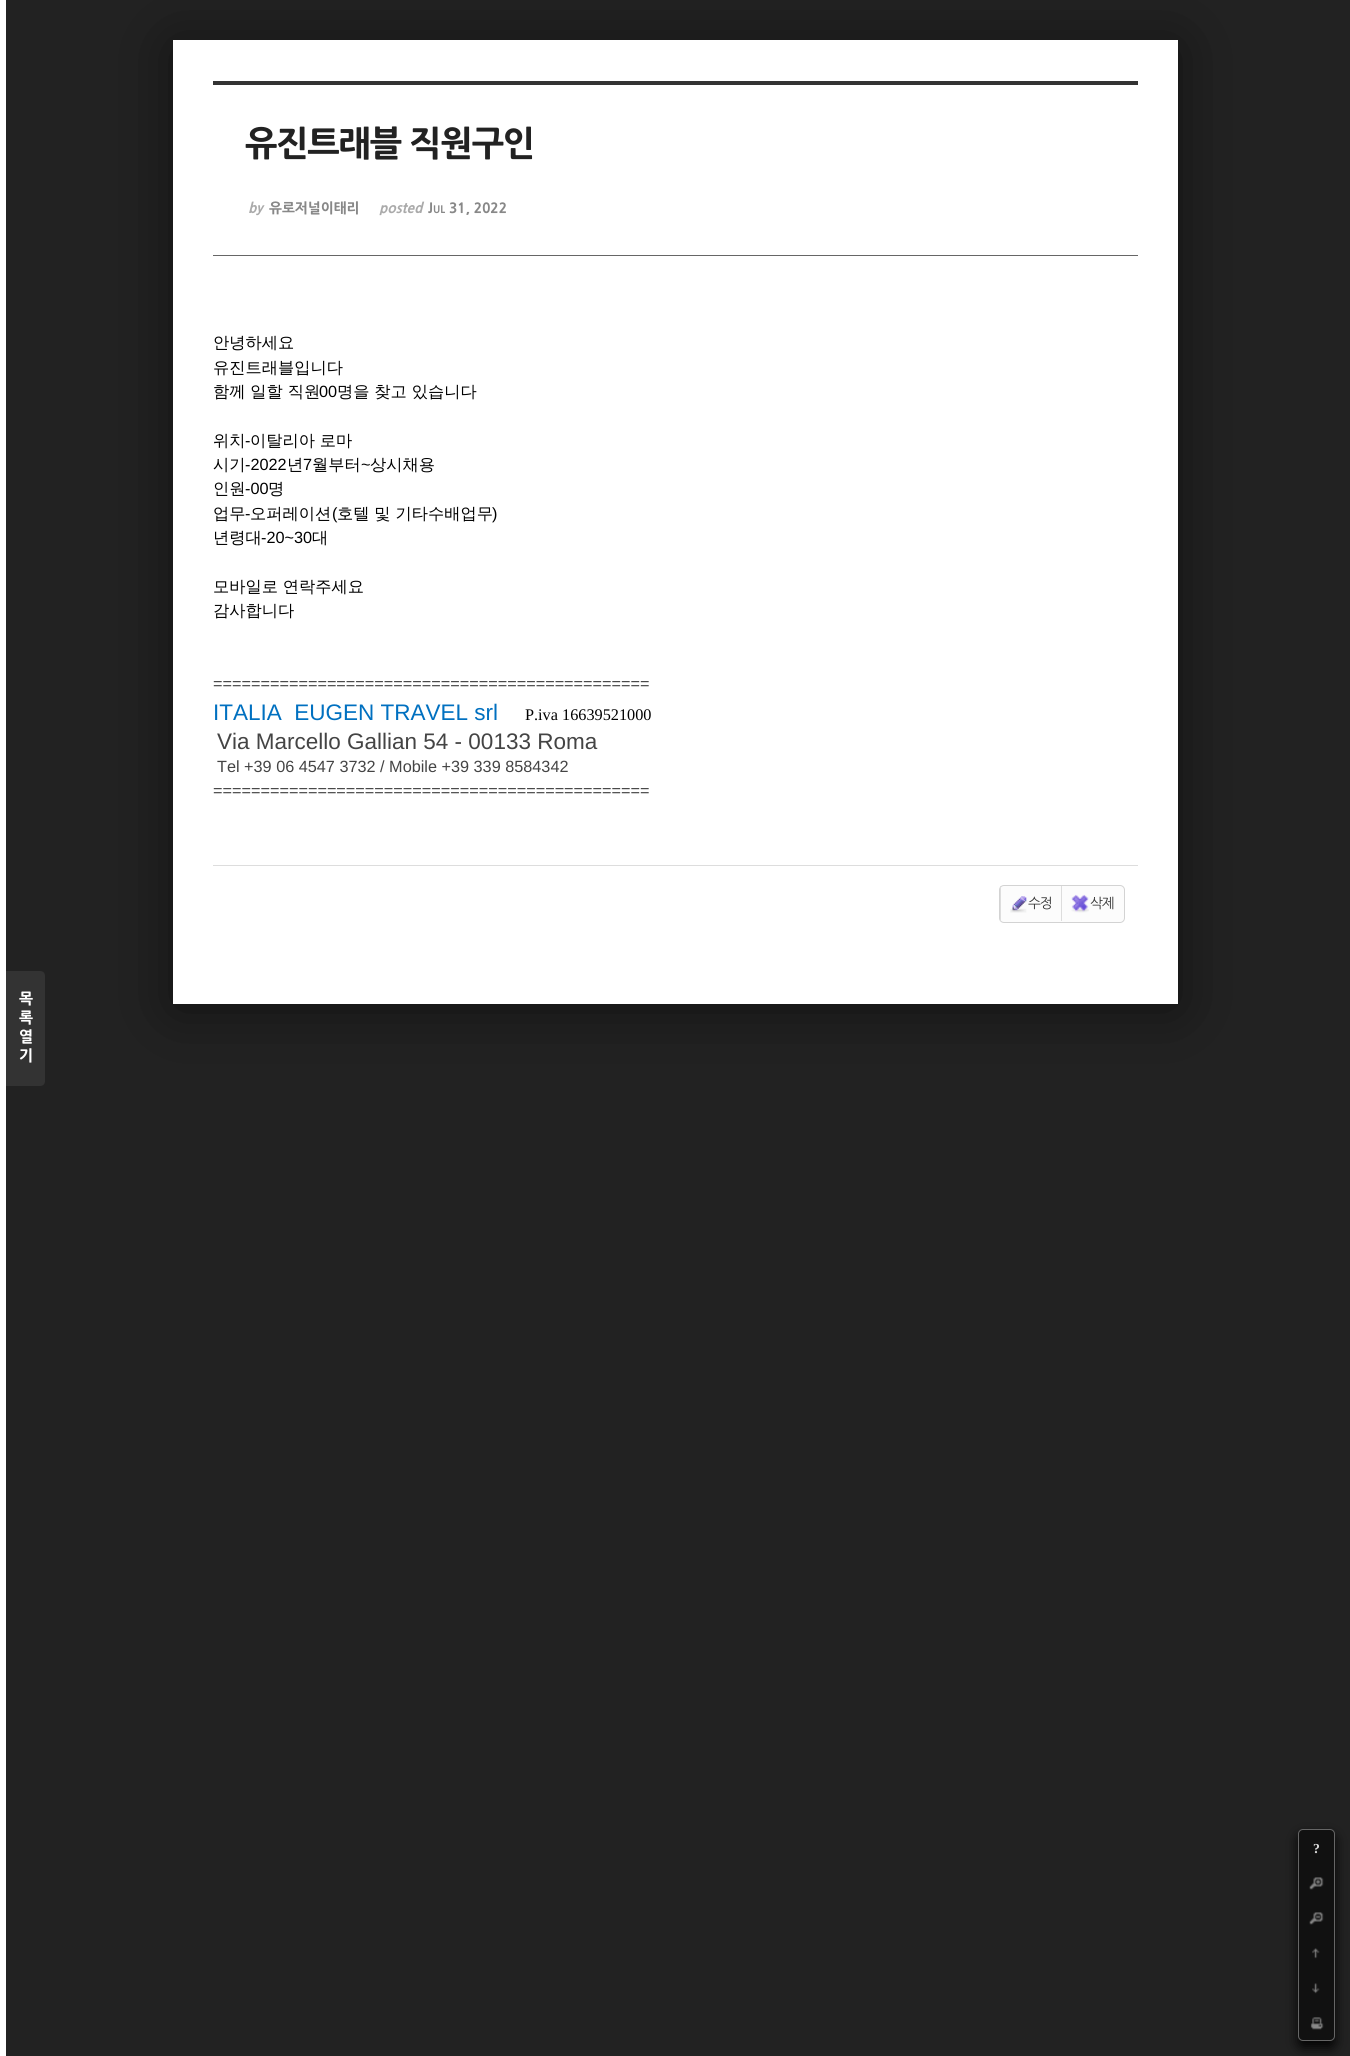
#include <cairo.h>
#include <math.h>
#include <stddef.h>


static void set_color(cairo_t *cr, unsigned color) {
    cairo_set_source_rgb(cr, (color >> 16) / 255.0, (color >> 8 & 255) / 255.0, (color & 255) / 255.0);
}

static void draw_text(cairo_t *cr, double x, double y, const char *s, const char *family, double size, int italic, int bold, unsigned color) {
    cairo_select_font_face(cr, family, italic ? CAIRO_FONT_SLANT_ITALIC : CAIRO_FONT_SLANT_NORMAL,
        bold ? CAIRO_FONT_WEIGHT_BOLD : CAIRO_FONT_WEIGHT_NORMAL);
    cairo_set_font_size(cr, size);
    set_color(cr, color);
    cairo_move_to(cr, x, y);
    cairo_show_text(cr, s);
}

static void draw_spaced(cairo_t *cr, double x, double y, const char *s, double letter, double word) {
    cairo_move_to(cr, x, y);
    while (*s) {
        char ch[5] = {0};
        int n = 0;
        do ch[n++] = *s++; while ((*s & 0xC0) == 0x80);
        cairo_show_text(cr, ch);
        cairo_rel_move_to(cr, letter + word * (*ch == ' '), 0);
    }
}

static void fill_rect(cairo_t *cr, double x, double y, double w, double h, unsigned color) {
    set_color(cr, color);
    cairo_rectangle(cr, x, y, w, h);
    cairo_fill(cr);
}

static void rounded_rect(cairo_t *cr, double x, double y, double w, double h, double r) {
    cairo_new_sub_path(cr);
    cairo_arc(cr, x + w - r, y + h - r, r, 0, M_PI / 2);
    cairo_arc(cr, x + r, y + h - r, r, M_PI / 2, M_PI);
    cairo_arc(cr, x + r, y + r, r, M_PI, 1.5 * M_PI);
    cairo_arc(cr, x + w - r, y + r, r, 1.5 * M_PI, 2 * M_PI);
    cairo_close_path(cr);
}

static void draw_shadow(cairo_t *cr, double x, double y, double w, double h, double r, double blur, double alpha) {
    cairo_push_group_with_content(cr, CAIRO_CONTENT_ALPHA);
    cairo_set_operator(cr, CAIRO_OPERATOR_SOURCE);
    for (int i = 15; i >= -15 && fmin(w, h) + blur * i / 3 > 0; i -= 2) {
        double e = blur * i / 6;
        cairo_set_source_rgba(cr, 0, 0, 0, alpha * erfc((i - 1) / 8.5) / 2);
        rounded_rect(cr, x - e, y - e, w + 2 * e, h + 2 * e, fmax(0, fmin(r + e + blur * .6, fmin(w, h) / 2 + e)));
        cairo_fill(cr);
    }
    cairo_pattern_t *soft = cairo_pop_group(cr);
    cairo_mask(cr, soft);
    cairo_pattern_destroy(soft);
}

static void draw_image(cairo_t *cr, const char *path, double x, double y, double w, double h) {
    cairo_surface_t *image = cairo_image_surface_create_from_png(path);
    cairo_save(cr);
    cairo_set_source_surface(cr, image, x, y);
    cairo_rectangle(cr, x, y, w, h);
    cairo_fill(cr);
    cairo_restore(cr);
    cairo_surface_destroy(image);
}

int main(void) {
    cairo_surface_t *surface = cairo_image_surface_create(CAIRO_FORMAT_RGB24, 1350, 2056);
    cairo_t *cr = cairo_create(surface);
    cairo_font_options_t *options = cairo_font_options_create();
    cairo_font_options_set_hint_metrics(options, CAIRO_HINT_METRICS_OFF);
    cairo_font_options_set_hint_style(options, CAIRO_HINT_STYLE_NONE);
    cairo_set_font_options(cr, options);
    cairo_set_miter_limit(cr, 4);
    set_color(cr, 0x222222);
    cairo_paint(cr);
    set_color(cr, 0x000000);
    draw_shadow(cr, 173, 45, 1005, 964, 0, 30, 0.5);
    fill_rect(cr, 173, 40, 1005, 964, 0xFFFFFF);
    fill_rect(cr, 0, 0, 6, 2056, 0xFFFFFF);
    set_color(cr, 0x333333);
    cairo_new_path(cr);
    cairo_move_to(cr, 6, 971);
    cairo_line_to(cr, 40, 971);
    cairo_curve_to(cr, 43, 971, 45, 973, 45, 976);
    cairo_line_to(cr, 45, 1081);
    cairo_curve_to(cr, 45, 1084, 43, 1086, 40, 1086);
    cairo_line_to(cr, 6, 1086);
    cairo_close_path(cr);
    cairo_fill(cr);
    draw_text(cr, 19, 1004, "목", "NanumGothic ExtraBold", 15, 0, 0, 0xFFFFFF);
    draw_text(cr, 19, 1023, "록", "NanumGothic ExtraBold", 15, 0, 0, 0xFFFFFF);
    draw_text(cr, 19, 1042, "열", "NanumGothic ExtraBold", 15, 0, 0, 0xFFFFFF);
    draw_text(cr, 19, 1061, "기", "NanumGothic ExtraBold", 15, 0, 0, 0xFFFFFF);
    fill_rect(cr, 213, 81, 925, 4, 0x333333);
    fill_rect(cr, 213, 255, 925, 1, 0x666666);
    cairo_set_font_size(cr, 34.5);
    set_color(cr, 0x222222);
    draw_spaced(cr, 245, 156, "유진트래블 직원구인", -1.25, 0);
    draw_text(cr, 248, 213, "by", "NanumGothic ExtraBold", 13.75, 1, 0, 0xAAAAAA);
    draw_text(cr, 269, 213, "유로저널이태리", "NanumGothic ExtraBold", 13.75, 0, 0, 0x888888);
    draw_text(cr, 379, 213, "posted", "NanumGothic ExtraBold", 13.75, 1, 0, 0xAAAAAA);
    draw_text(cr, 428, 213, "J", "NanumGothic ExtraBold", 13.75, 0, 0, 0x888888);
    draw_text(cr, 433, 213, "UL", "NanumGothic ExtraBold", 10, 0, 0, 0x888888);
    draw_text(cr, 449, 213, "31, 2022", "NanumGothic ExtraBold", 13.75, 0, 0, 0x888888);
    set_color(cr, 0x000000);
    draw_shadow(cr, 1298, 1835, 37, 213, 5, 6, 0.9);
    set_color(cr, 0x111111);
    rounded_rect(cr, 1298.5, 1829.5, 36, 211, 4.5);
    cairo_fill_preserve(cr);
    set_color(cr, 0x666666);
    cairo_set_line_width(cr, 1);
    cairo_stroke(cr);
    cairo_select_font_face(cr, "Liberation Serif", CAIRO_FONT_SLANT_NORMAL, CAIRO_FONT_WEIGHT_BOLD);
    set_color(cr, 0xDDDDDD);
    draw_spaced(cr, 1313, 1853, "?", -1.25, 0);
    draw_image(cr, "assets/img1.png", 1309, 1877, 15, 13);
    draw_image(cr, "assets/img2.png", 1309, 1912, 15, 13);
    draw_image(cr, "assets/img3.png", 1312, 1948, 8, 11);
    draw_image(cr, "assets/img4.png", 1312, 1983, 8, 11);
    draw_image(cr, "assets/img5.png", 1310, 2017, 14, 13);
    draw_text(cr, 213, 348, "안녕하세요", "WenQuanYi Zen Hei Medium", 16.25, 0, 0, 0x000000);
    draw_text(cr, 213, 373, "유진트래블입니다", "WenQuanYi Zen Hei Medium", 16.25, 0, 0, 0x000000);
    draw_text(cr, 213, 397, "함께 일할 직원", "WenQuanYi Zen Hei Medium", 16.25, 0, 0, 0x000000);
    draw_text(cr, 319, 397, "00", "Liberation Sans", 16.25, 0, 0, 0x000000);
    draw_text(cr, 337, 397, "명을 찾고 있습니다", "WenQuanYi Zen Hei Medium", 16.25, 0, 0, 0x000000);
    draw_text(cr, 213, 446, "위치", "WenQuanYi Zen Hei Medium", 16.25, 0, 0, 0x000000);
    draw_text(cr, 245, 446, "-", "Liberation Sans", 16.25, 0, 0, 0x000000);
    draw_text(cr, 250, 446, "이탈리아 로마", "WenQuanYi Zen Hei Medium", 16.25, 0, 0, 0x000000);
    draw_text(cr, 213, 470, "시기", "WenQuanYi Zen Hei Medium", 16.25, 0, 0, 0x000000);
    draw_text(cr, 245, 470, "-2022", "Liberation Sans", 16.25, 0, 0, 0x000000);
    draw_text(cr, 287, 470, "년", "WenQuanYi Zen Hei Medium", 16.25, 0, 0, 0x000000);
    draw_text(cr, 303, 470, "7", "Liberation Sans", 16.25, 0, 0, 0x000000);
    draw_text(cr, 312, 470, "월부터", "WenQuanYi Zen Hei Medium", 16.25, 0, 0, 0x000000);
    draw_text(cr, 361, 470, "~", "Liberation Sans", 16.25, 0, 0, 0x000000);
    draw_text(cr, 370, 470, "상시채용", "WenQuanYi Zen Hei Medium", 16.25, 0, 0, 0x000000);
    draw_text(cr, 213, 494, "인원", "WenQuanYi Zen Hei Medium", 16.25, 0, 0, 0x000000);
    draw_text(cr, 245, 494, "-00", "Liberation Sans", 16.25, 0, 0, 0x000000);
    draw_text(cr, 268, 494, "명", "WenQuanYi Zen Hei Medium", 16.25, 0, 0, 0x000000);
    draw_text(cr, 213, 519, "업무", "WenQuanYi Zen Hei Medium", 16.25, 0, 0, 0x000000);
    draw_text(cr, 245, 519, "-", "Liberation Sans", 16.25, 0, 0, 0x000000);
    draw_text(cr, 250, 519, "오퍼레이션", "WenQuanYi Zen Hei Medium", 16.25, 0, 0, 0x000000);
    draw_text(cr, 332, 519, "(", "Liberation Sans", 16.25, 0, 0, 0x000000);
    draw_text(cr, 337, 519, "호텔 및 기타수배업무", "WenQuanYi Zen Hei Medium", 16.25, 0, 0, 0x000000);
    draw_text(cr, 492, 519, ")", "Liberation Sans", 16.25, 0, 0, 0x000000);
    draw_text(cr, 213, 543, "년령대", "WenQuanYi Zen Hei Medium", 16.25, 0, 0, 0x000000);
    draw_text(cr, 261, 543, "-20~30", "Liberation Sans", 16.25, 0, 0, 0x000000);
    draw_text(cr, 312, 543, "대", "WenQuanYi Zen Hei Medium", 16.25, 0, 0, 0x000000);
    draw_text(cr, 213, 592, "모바일로 연락주세요", "WenQuanYi Zen Hei Medium", 16.25, 0, 0, 0x000000);
    draw_text(cr, 213, 616, "감사합니다", "WenQuanYi Zen Hei Medium", 16.25, 0, 0, 0x000000);
    draw_text(cr, 213, 689, "==============================================", "Liberation Sans", 16.25, 0, 0, 0x444444);
    draw_text(cr, 213, 720, "ITALIA  EUGEN TRAVEL srl", "Liberation Sans", 22.5, 0, 0, 0x0070C0);
    draw_text(cr, 525, 720, "P.iva 16639521000", "Liberation Serif", 16.25, 0, 0, 0x000000);
    draw_text(cr, 217, 749, "Via Marcello Gallian 54 - 00133 Roma", "Liberation Sans", 22.5, 0, 0, 0x444444);
    draw_text(cr, 217, 772, "Tel +39 06 4547 3732 / Mobile +39 339 8584342", "Liberation Sans", 16.25, 0, 0, 0x444444);
    draw_text(cr, 213, 796, "==============================================", "Liberation Sans", 16.25, 0, 0, 0x444444);
    fill_rect(cr, 213, 865, 925, 1, 0xDDDDDD);
    set_color(cr, 0xFCFCFC);
    rounded_rect(cr, 999.5, 885.5, 125, 37, 4.5);
    cairo_fill_preserve(cr);
    set_color(cr, 0xD3D3D3);
    cairo_stroke(cr);
    fill_rect(cr, 1000, 886, 1, 35, 0xDDDDDD);
    draw_image(cr, "assets/img6.png", 1010, 896, 17, 17);
    cairo_select_font_face(cr, "NanumGothic", CAIRO_FONT_SLANT_NORMAL, CAIRO_FONT_WEIGHT_NORMAL);
    cairo_set_font_size(cr, 13.75);
    set_color(cr, 0x333333);
    draw_spaced(cr, 1028, 908, "수정", -1.25, 0);
    fill_rect(cr, 1061, 886, 1, 35, 0xDDDDDD);
    draw_image(cr, "assets/img7.png", 1071, 894, 18, 19);
    set_color(cr, 0x333333);
    draw_spaced(cr, 1090, 908, "삭제", -1.25, 0);
    cairo_surface_write_to_png(surface, "output.png");
    cairo_font_options_destroy(options);
    cairo_destroy(cr);
    cairo_surface_destroy(surface);
    return 0;
}
